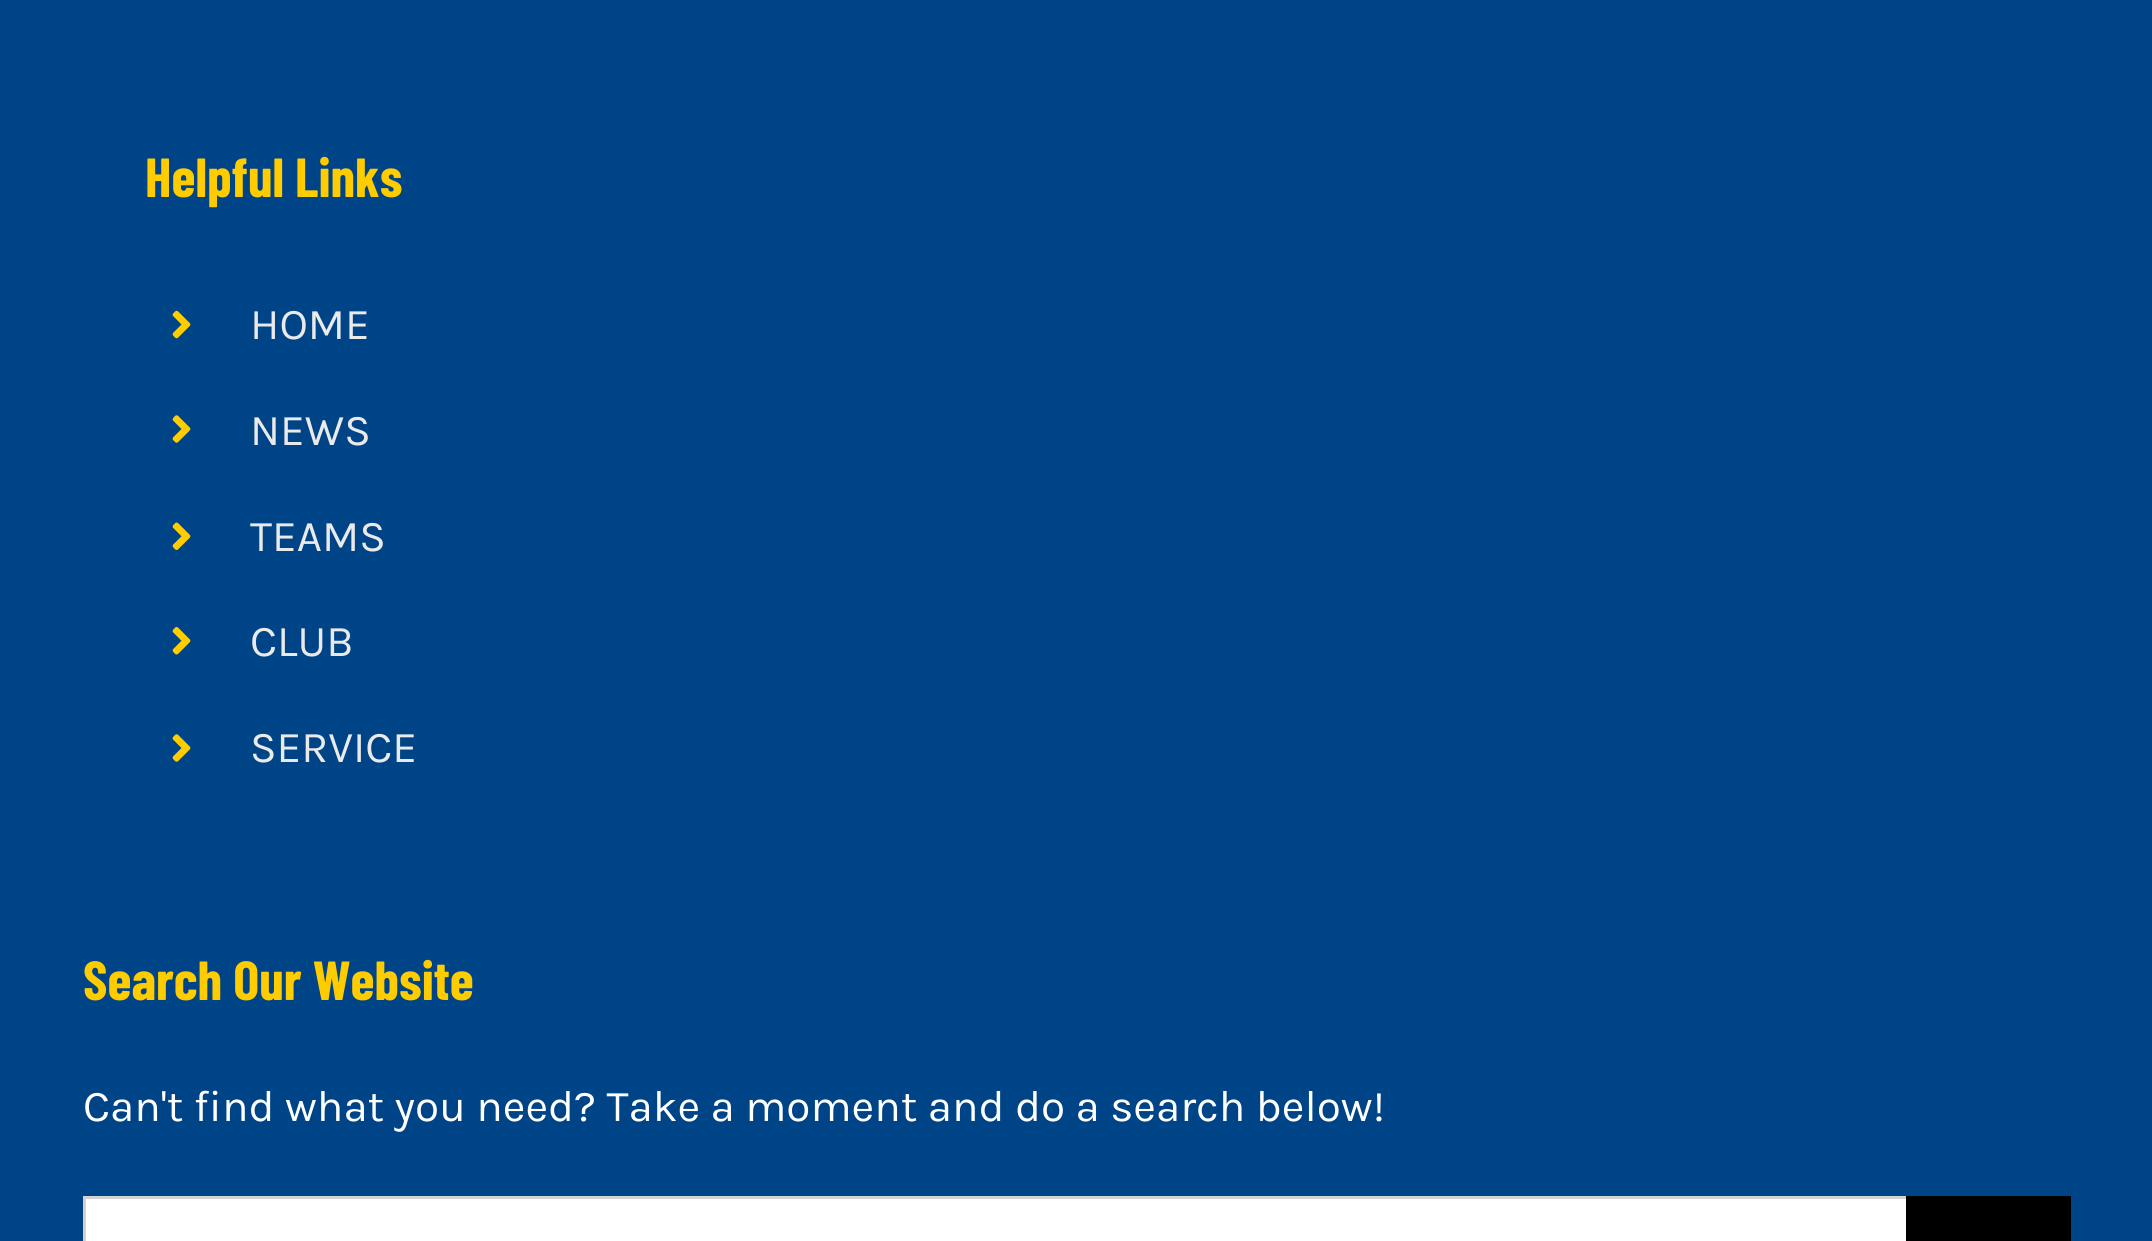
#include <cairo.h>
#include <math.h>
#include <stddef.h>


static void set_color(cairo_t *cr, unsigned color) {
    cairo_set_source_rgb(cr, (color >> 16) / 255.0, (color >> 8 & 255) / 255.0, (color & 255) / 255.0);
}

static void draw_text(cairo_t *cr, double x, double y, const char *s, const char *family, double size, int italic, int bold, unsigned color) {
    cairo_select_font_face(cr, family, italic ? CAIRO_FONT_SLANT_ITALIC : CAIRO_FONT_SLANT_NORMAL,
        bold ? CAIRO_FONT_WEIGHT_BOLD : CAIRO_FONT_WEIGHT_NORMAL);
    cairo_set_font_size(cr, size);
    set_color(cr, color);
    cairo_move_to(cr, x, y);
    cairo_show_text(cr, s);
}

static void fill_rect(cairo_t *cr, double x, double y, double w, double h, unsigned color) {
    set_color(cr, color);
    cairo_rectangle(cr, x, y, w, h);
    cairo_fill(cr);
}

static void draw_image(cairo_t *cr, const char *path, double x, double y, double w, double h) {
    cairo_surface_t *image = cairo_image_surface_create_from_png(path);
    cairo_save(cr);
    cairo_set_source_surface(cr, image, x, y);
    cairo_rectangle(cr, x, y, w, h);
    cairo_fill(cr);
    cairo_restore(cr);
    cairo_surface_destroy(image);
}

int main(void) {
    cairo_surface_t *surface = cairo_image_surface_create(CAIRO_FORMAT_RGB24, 2152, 1241);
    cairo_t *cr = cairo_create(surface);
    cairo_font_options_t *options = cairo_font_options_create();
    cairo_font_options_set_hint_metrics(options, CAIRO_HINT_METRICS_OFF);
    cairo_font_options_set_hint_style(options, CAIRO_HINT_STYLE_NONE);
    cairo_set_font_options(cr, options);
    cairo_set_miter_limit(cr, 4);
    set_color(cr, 0x004488);
    cairo_paint(cr);
    draw_text(cr, 145, 197, "Helpful Links", "Barlow Condensed", 55, 0, 1, 0xFFCC00);
    draw_image(cr, "assets/img1.png", 172, 310, 19, 29);
    draw_text(cr, 250, 339, "HOME", "Karla", 44, 0, 0, 0xEAEAEA);
    draw_image(cr, "assets/img2.png", 172, 415, 19, 28);
    draw_text(cr, 250, 445, "NEWS", "Karla", 44, 0, 0, 0xEAEAEA);
    draw_image(cr, "assets/img3.png", 172, 522, 19, 28);
    draw_text(cr, 250, 551, "TEAMS", "Karla", 44, 0, 0, 0xEAEAEA);
    draw_image(cr, "assets/img4.png", 172, 627, 19, 28);
    draw_text(cr, 250, 656, "CLUB", "Karla", 44, 0, 0, 0xEAEAEA);
    draw_image(cr, "assets/img2.png", 172, 734, 19, 28);
    draw_text(cr, 250, 762, "SERVICE", "Karla", 44, 0, 0, 0xEAEAEA);
    draw_text(cr, 83, 1000, "Search Our Website", "Barlow Condensed", 55, 0, 1, 0xFFCC00);
    draw_text(cr, 83, 1121, "Can't find what you need? Take a moment and do a search below!", "Karla", 44, 0, 0, 0xFFFFFF);
    fill_rect(cr, 86, 1199, 1820, 42, 0xFFFFFF);
    fill_rect(cr, 83, 1196, 1823, 3, 0xD2D2D2);
    fill_rect(cr, 83, 1196, 3, 45, 0xD2D2D2);
    fill_rect(cr, 1906, 1196, 165, 45, 0x000000);
    cairo_surface_write_to_png(surface, "output.png");
    cairo_font_options_destroy(options);
    cairo_destroy(cr);
    cairo_surface_destroy(surface);
    return 0;
}
